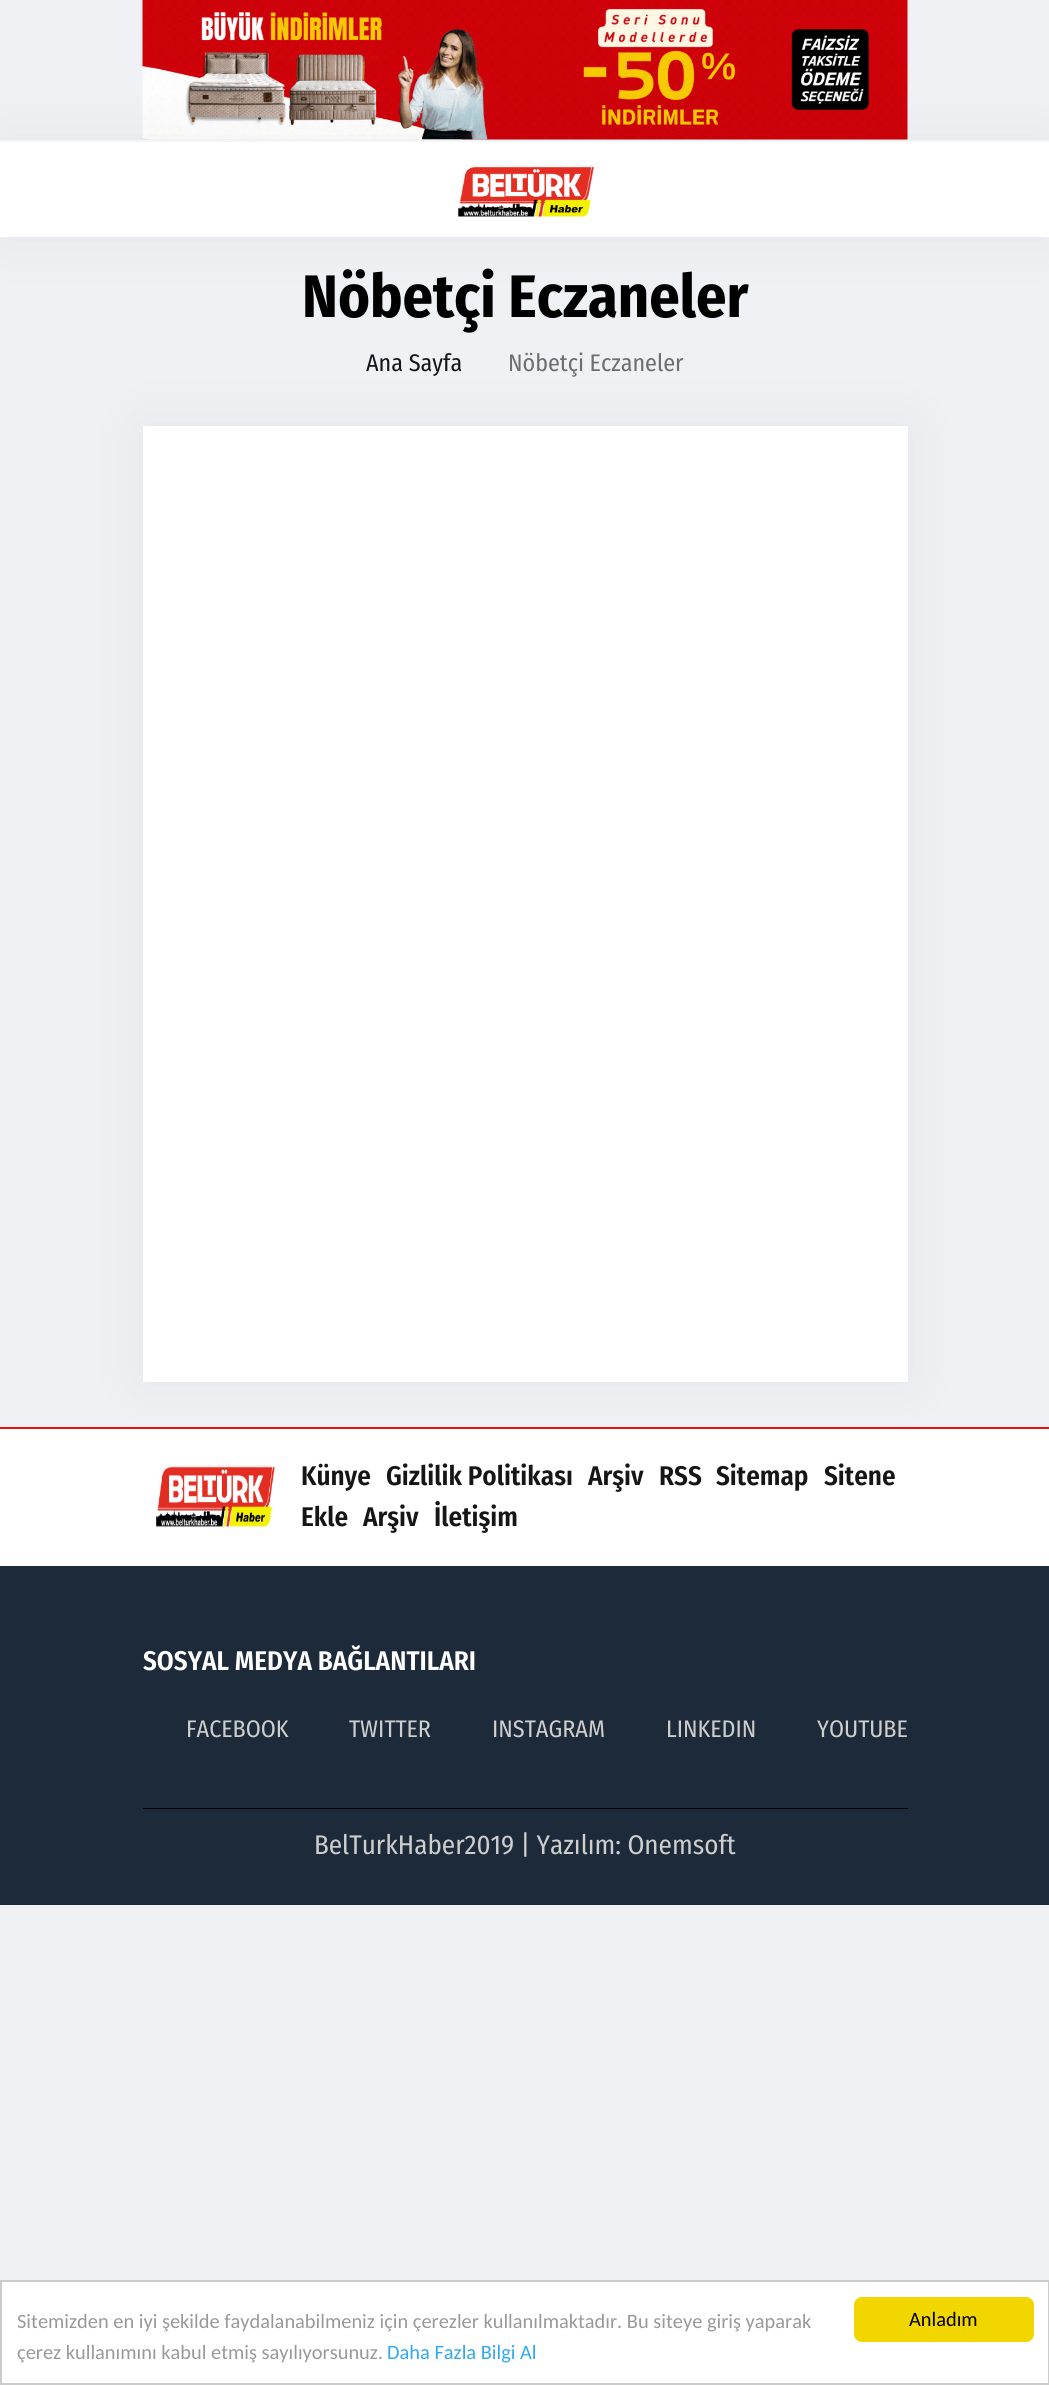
#include <cairo.h>
#include <math.h>
#include <stddef.h>


static void set_color(cairo_t *cr, unsigned color) {
    cairo_set_source_rgb(cr, (color >> 16) / 255.0, (color >> 8 & 255) / 255.0, (color & 255) / 255.0);
}

static void draw_text(cairo_t *cr, double x, double y, const char *s, const char *family, double size, int italic, int bold, unsigned color) {
    cairo_select_font_face(cr, family, italic ? CAIRO_FONT_SLANT_ITALIC : CAIRO_FONT_SLANT_NORMAL,
        bold ? CAIRO_FONT_WEIGHT_BOLD : CAIRO_FONT_WEIGHT_NORMAL);
    cairo_set_font_size(cr, size);
    set_color(cr, color);
    cairo_move_to(cr, x, y);
    cairo_show_text(cr, s);
}

static void fill_rect(cairo_t *cr, double x, double y, double w, double h, unsigned color) {
    set_color(cr, color);
    cairo_rectangle(cr, x, y, w, h);
    cairo_fill(cr);
}

static void rounded_rect(cairo_t *cr, double x, double y, double w, double h, double r) {
    cairo_new_sub_path(cr);
    cairo_arc(cr, x + w - r, y + h - r, r, 0, M_PI / 2);
    cairo_arc(cr, x + r, y + h - r, r, M_PI / 2, M_PI);
    cairo_arc(cr, x + r, y + r, r, M_PI, 1.5 * M_PI);
    cairo_arc(cr, x + w - r, y + r, r, 1.5 * M_PI, 2 * M_PI);
    cairo_close_path(cr);
}

static void draw_shadow(cairo_t *cr, double x, double y, double w, double h, double r, double blur, double alpha) {
    cairo_push_group_with_content(cr, CAIRO_CONTENT_ALPHA);
    cairo_set_operator(cr, CAIRO_OPERATOR_SOURCE);
    for (int i = 15; i >= -15 && fmin(w, h) + blur * i / 3 > 0; i -= 2) {
        double e = blur * i / 6;
        cairo_set_source_rgba(cr, 0, 0, 0, alpha * erfc((i - 1) / 8.5) / 2);
        rounded_rect(cr, x - e, y - e, w + 2 * e, h + 2 * e, fmax(0, fmin(r + e + blur * .6, fmin(w, h) / 2 + e)));
        cairo_fill(cr);
    }
    cairo_pattern_t *soft = cairo_pop_group(cr);
    cairo_mask(cr, soft);
    cairo_pattern_destroy(soft);
}

static void draw_image(cairo_t *cr, const char *path, double x, double y, double w, double h) {
    cairo_surface_t *image = cairo_image_surface_create_from_png(path);
    cairo_save(cr);
    cairo_set_source_surface(cr, image, x, y);
    cairo_rectangle(cr, x, y, w, h);
    cairo_fill(cr);
    cairo_restore(cr);
    cairo_surface_destroy(image);
}

int main(void) {
    cairo_surface_t *surface = cairo_image_surface_create(CAIRO_FORMAT_RGB24, 1049, 2385);
    cairo_t *cr = cairo_create(surface);
    cairo_font_options_t *options = cairo_font_options_create();
    cairo_font_options_set_hint_metrics(options, CAIRO_HINT_METRICS_OFF);
    cairo_font_options_set_hint_style(options, CAIRO_HINT_STYLE_NONE);
    cairo_set_font_options(cr, options);
    cairo_set_miter_limit(cr, 4);
    set_color(cr, 0xF0F1F4);
    cairo_paint(cr);
    draw_image(cr, "assets/img1.png", 142, 0, 766, 140);
    set_color(cr, 0x000000);
    draw_shadow(cr, 0, 140, 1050, 97, 0, 30, 0.05);
    fill_rect(cr, 0, 142, 1049, 95, 0xFFFFFF);
    fill_rect(cr, 0, 140, 1049, 2, 0xF4F5F9);
    draw_image(cr, "assets/img2.png", 457, 165, 137, 52);
    draw_text(cr, 302, 317, "Nöbetçi Eczaneler", "Fira Sans Condensed", 60, 0, 1, 0x000000);
    fill_rect(cr, 0, 1429, 1049, 137, 0xFFFFFF);
    fill_rect(cr, 0, 1427, 1049, 2, 0xE11313);
    draw_image(cr, "assets/img3.png", 156, 1464, 119, 63);
    set_color(cr, 0x000000);
    draw_shadow(cr, 143, 426, 765, 956, 0, 30, 0.05);
    draw_text(cr, 366, 371, "Ana Sayfa", "Fira Sans Condensed", 24, 0, 0, 0x171616);
    draw_text(cr, 508, 371, "Nöbetçi Eczaneler", "Fira Sans Condensed", 24, 0, 0, 0x6E6E6E);
    fill_rect(cr, 143, 426, 765, 956, 0xFFFFFF);
    draw_text(cr, 301, 1485, "Künye", "Fira Sans Condensed SemiBold", 27, 0, 0, 0x171616);
    draw_text(cr, 386, 1485, "Gizlilik Politikası", "Fira Sans Condensed SemiBold", 27, 0, 0, 0x171616);
    draw_text(cr, 588, 1485, "Arşiv", "Fira Sans Condensed SemiBold", 27, 0, 0, 0x171616);
    draw_text(cr, 659, 1485, "RSS", "Fira Sans Condensed SemiBold", 27, 0, 0, 0x171616);
    draw_text(cr, 716, 1485, "Sitemap", "Fira Sans Condensed SemiBold", 27, 0, 0, 0x171616);
    draw_text(cr, 824, 1485, "Sitene", "Fira Sans Condensed SemiBold", 27, 0, 0, 0x171616);
    draw_text(cr, 301, 1526, "Ekle", "Fira Sans Condensed SemiBold", 27, 0, 0, 0x171616);
    draw_text(cr, 363, 1526, "Arşiv", "Fira Sans Condensed SemiBold", 27, 0, 0, 0x171616);
    draw_text(cr, 434, 1526, "İletişim", "Fira Sans Condensed SemiBold", 27, 0, 0, 0x171616);
    fill_rect(cr, 0, 1566, 1049, 339, 0x1C2A39);
    fill_rect(cr, 143, 1808, 765, 1, 0x000000);
    draw_text(cr, 143, 1670, "SOSYAL MEDYA BAĞLANTILARI", "Fira Sans Condensed SemiBold", 27, 0, 0, 0xFFFFFF);
    draw_text(cr, 186, 1737, "FACEBOOK", "Fira Sans Condensed", 24, 0, 0, 0xCECECE);
    draw_text(cr, 349, 1737, "TWITTER", "Fira Sans Condensed", 24, 0, 0, 0xCECECE);
    draw_text(cr, 492, 1737, "INSTAGRAM", "Fira Sans Condensed", 24, 0, 0, 0xCECECE);
    draw_text(cr, 666, 1737, "LINKEDIN", "Fira Sans Condensed", 24, 0, 0, 0xCECECE);
    draw_text(cr, 817, 1737, "YOUTUBE", "Fira Sans Condensed", 24, 0, 0, 0xCECECE);
    draw_text(cr, 314, 1854, "BelTurkHaber2019 | Yazılım: Onemsoft", "Fira Sans Condensed", 27, 0, 0, 0xCECECE);
    set_color(cr, 0xFFFFFF);
    cairo_rectangle(cr, 1, 2281, 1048, 103);
    cairo_fill_preserve(cr);
    set_color(cr, 0xCCCCCC);
    cairo_stroke(cr);
    draw_text(cr, 17, 2328, "Sitemizden en iyi şekilde faydalanabilmeniz için çerezler kullanılmaktadır. Bu siteye giriş yaparak", "Carlito", 20.4, 0, 0, 0x999999);
    draw_text(cr, 17, 2359, "çerez kullanımını kabul etmiş sayılıyorsunuz.", "Carlito", 20.4, 0, 0, 0x999999);
    draw_text(cr, 387, 2359, "Daha Fazla Bilgi Al", "Carlito", 20.4, 0, 0, 0x31A8F0);
    set_color(cr, 0xF1D600);
    rounded_rect(cr, 854, 2297, 180, 45, 8);
    cairo_fill(cr);
    draw_text(cr, 909, 2326, "Anladım", "Carlito", 20.4, 0, 0, 0x000000);
    cairo_surface_write_to_png(surface, "output.png");
    cairo_font_options_destroy(options);
    cairo_destroy(cr);
    cairo_surface_destroy(surface);
    return 0;
}
